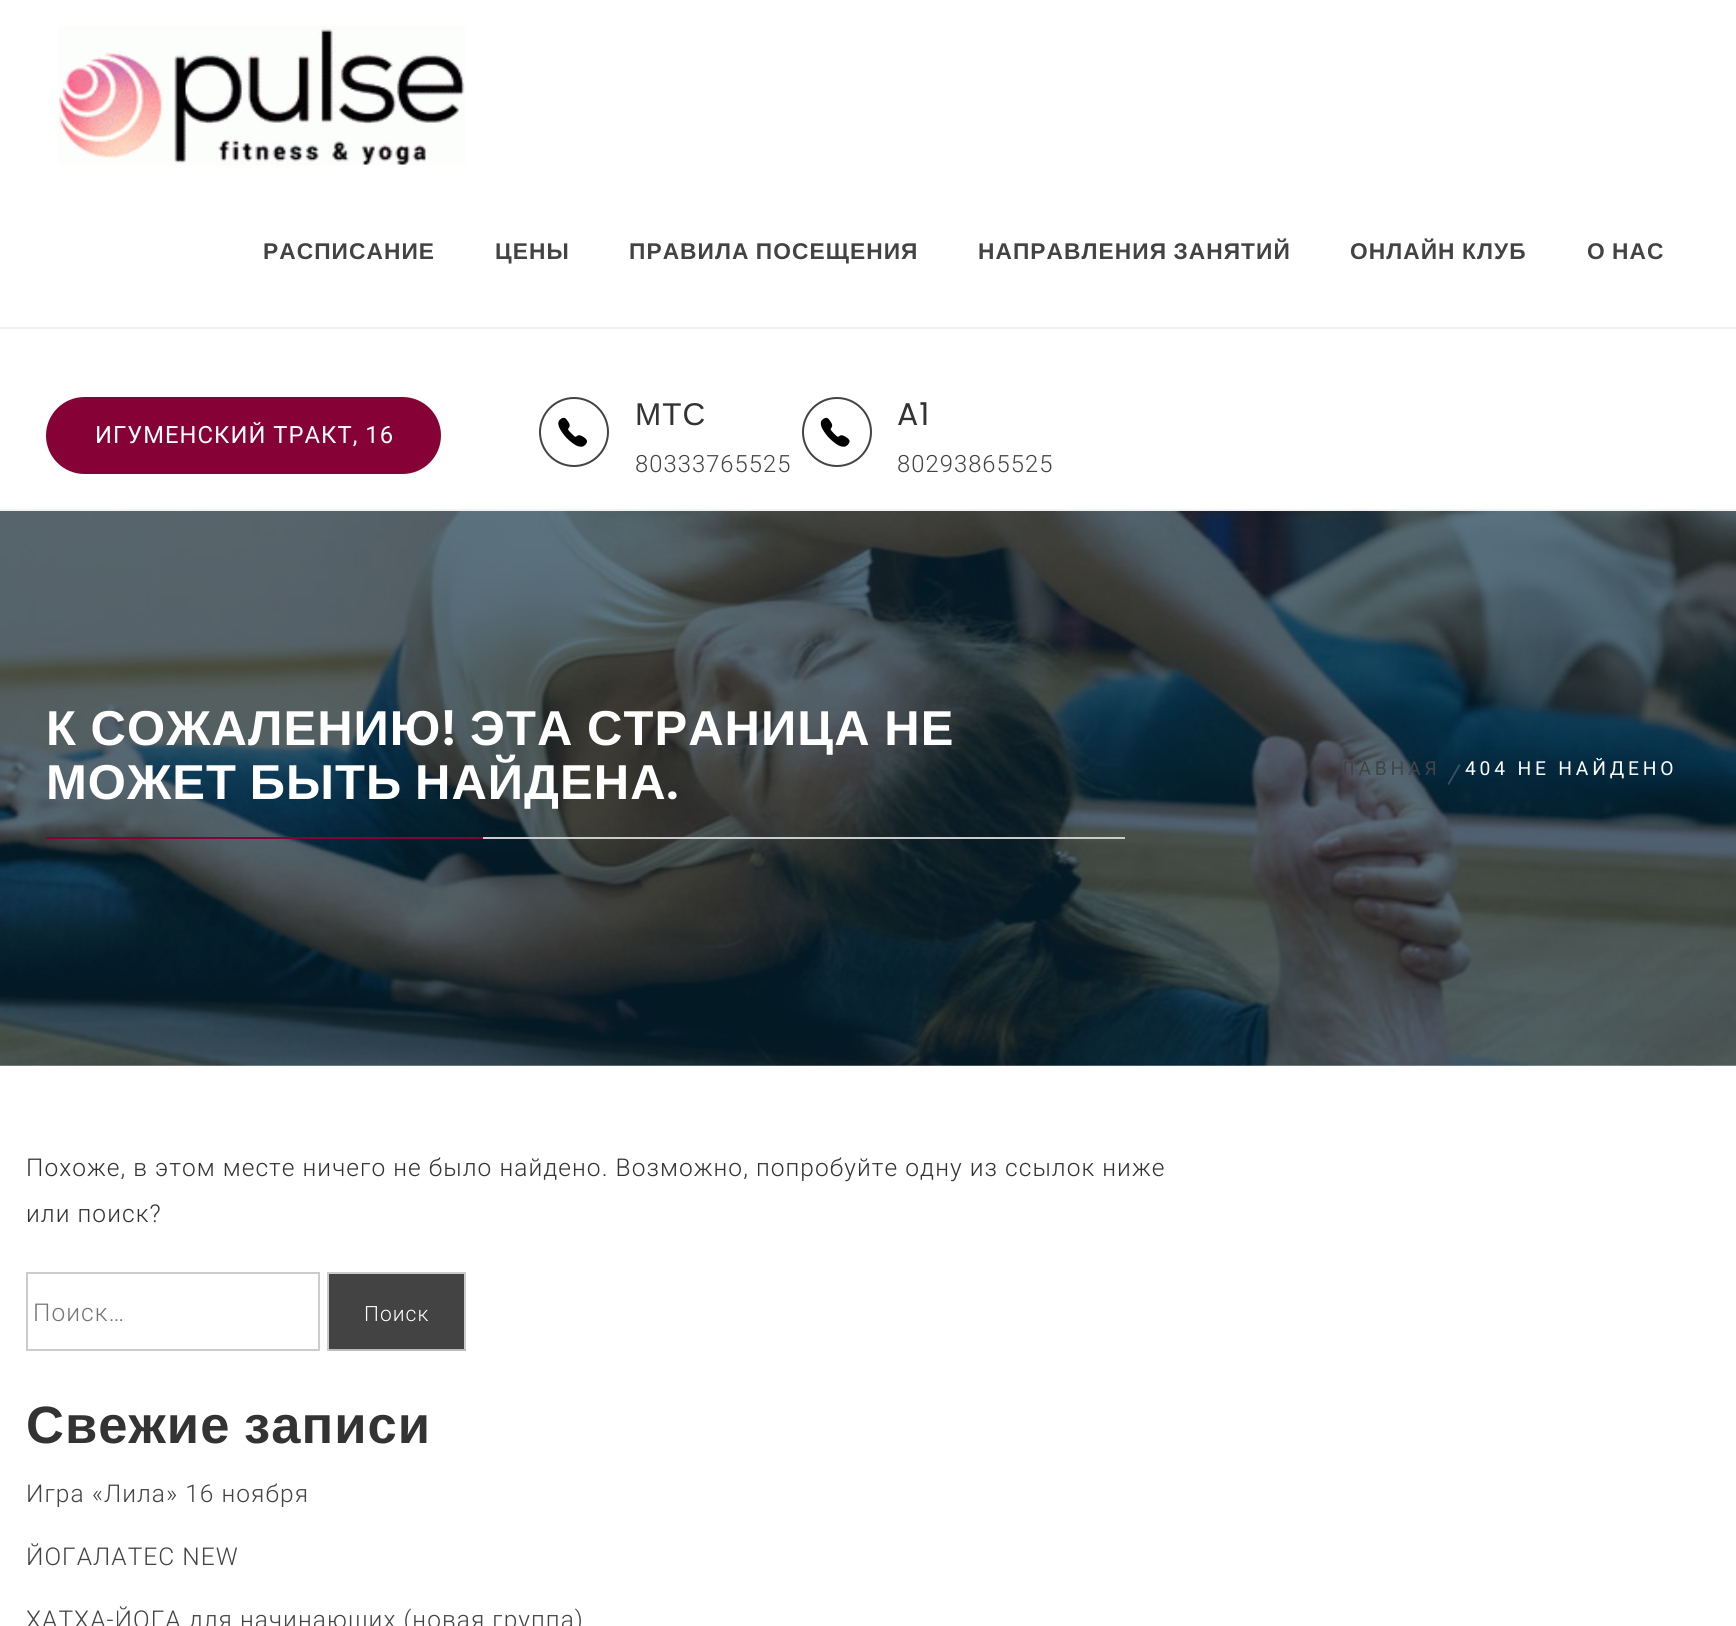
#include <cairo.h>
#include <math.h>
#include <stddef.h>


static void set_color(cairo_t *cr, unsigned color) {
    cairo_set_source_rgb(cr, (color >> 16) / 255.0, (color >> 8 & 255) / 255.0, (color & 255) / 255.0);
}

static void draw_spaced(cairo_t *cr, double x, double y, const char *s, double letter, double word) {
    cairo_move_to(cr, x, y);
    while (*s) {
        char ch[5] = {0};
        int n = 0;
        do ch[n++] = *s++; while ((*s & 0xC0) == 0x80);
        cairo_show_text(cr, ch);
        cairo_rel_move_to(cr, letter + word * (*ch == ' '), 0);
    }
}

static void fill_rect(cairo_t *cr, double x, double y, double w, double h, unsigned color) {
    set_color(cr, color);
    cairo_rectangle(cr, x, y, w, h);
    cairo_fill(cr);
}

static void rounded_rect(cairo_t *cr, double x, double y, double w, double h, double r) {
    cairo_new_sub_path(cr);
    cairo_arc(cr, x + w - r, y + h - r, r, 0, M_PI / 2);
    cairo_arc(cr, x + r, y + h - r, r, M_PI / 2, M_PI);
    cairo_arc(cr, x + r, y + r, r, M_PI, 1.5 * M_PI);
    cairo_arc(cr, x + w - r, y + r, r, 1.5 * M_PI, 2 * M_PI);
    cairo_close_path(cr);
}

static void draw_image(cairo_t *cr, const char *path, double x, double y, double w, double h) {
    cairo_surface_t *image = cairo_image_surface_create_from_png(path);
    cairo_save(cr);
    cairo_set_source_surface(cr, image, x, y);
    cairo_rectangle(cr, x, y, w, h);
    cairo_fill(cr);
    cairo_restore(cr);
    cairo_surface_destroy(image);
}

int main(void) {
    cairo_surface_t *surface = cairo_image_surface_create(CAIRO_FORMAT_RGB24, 1736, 1626);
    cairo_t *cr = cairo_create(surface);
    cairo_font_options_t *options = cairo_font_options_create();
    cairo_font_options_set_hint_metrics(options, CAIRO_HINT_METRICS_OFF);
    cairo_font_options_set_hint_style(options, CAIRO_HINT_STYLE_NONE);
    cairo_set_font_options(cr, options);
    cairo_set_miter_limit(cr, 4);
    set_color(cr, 0xFFFFFF);
    cairo_paint(cr);
    fill_rect(cr, 0, 327, 1736, 2, 0xF2F2F2);
    draw_image(cr, "assets/img1.png", 58, 26, 407, 139);
    cairo_select_font_face(cr, "Liberation Sans", CAIRO_FONT_SLANT_NORMAL, CAIRO_FONT_WEIGHT_BOLD);
    cairo_set_font_size(cr, 22.75);
    set_color(cr, 0x434343);
    draw_spaced(cr, 263, 259, "РАСПИСАНИЕ", 1.05, 0);
    draw_spaced(cr, 495, 259, "ЦЕНЫ", 1.05, 0);
    draw_spaced(cr, 629, 259, "ПРАВИЛА ПОСЕЩЕНИЯ", 1.05, -1);
    draw_spaced(cr, 978, 259, "НАПРАВЛЕНИЯ ЗАНЯТИЙ", 1.05, -1);
    draw_spaced(cr, 1350, 259, "ОНЛАЙН КЛУБ", 1.05, -1);
    draw_spaced(cr, 1587, 259, "О НАС", 1.05, -1);
    fill_rect(cr, 0, 509, 1736, 2, 0xF3F3F3);
    set_color(cr, 0x860135);
    rounded_rect(cr, 46, 397, 395, 77, 38.5);
    cairo_fill(cr);
    cairo_select_font_face(cr, "Roboto", CAIRO_FONT_SLANT_NORMAL, CAIRO_FONT_WEIGHT_NORMAL);
    cairo_set_font_size(cr, 23.75);
    set_color(cr, 0xFFFFFF);
    draw_spaced(cr, 95, 443, "ИГУМЕНСКИЙ ТРАКТ, 16", 1.05, 0);
    cairo_new_path(cr);
    cairo_arc(cr, 574, 432, 34, 0, 2 * M_PI);
    set_color(cr, 0x434343);
    cairo_stroke(cr);
    draw_image(cr, "assets/img2.png", 558, 417, 29, 30);
    cairo_select_font_face(cr, "Liberation Sans", CAIRO_FONT_SLANT_NORMAL, CAIRO_FONT_WEIGHT_NORMAL);
    cairo_set_font_size(cr, 31.5);
    set_color(cr, 0x333333);
    draw_spaced(cr, 635, 425, "МТС", 1.05, 0);
    cairo_select_font_face(cr, "Roboto Light", CAIRO_FONT_SLANT_NORMAL, CAIRO_FONT_WEIGHT_NORMAL);
    cairo_set_font_size(cr, 23.75);
    set_color(cr, 0x434343);
    draw_spaced(cr, 635, 472, "80333765525", 1.05, 0);
    cairo_new_path(cr);
    cairo_arc(cr, 837, 432, 34, 0, 2 * M_PI);
    cairo_stroke(cr);
    draw_image(cr, "assets/img3.png", 820, 417, 30, 30);
    cairo_select_font_face(cr, "Poppins", CAIRO_FONT_SLANT_NORMAL, CAIRO_FONT_WEIGHT_NORMAL);
    cairo_set_font_size(cr, 31.5);
    set_color(cr, 0x333333);
    draw_spaced(cr, 897, 425, "A1", 1.05, 0);
    cairo_select_font_face(cr, "Roboto Light", CAIRO_FONT_SLANT_NORMAL, CAIRO_FONT_WEIGHT_NORMAL);
    cairo_set_font_size(cr, 23.75);
    set_color(cr, 0x434343);
    draw_spaced(cr, 897, 472, "80293865525", 1.05, 0);
    draw_image(cr, "assets/img4.png", 0, 511, 1736, 555);
    fill_rect(cr, 483, 837, 642, 2, 0xCCCCCC);
    cairo_select_font_face(cr, "Liberation Sans", CAIRO_FONT_SLANT_NORMAL, CAIRO_FONT_WEIGHT_BOLD);
    cairo_set_font_size(cr, 49);
    set_color(cr, 0xFFFFFF);
    draw_spaced(cr, 46, 745, "К СОЖАЛЕНИЮ", 1.05, -1);
    cairo_select_font_face(cr, "Poppins SemiBold", CAIRO_FONT_SLANT_NORMAL, CAIRO_FONT_WEIGHT_NORMAL);
    draw_spaced(cr, 440, 745, "!", 1.05, 0);
    cairo_select_font_face(cr, "Liberation Sans", CAIRO_FONT_SLANT_NORMAL, CAIRO_FONT_WEIGHT_BOLD);
    draw_spaced(cr, 470, 745, "ЭТА СТРАНИЦА НЕ", 1.05, -1);
    draw_spaced(cr, 46, 799, "МОЖЕТ БЫТЬ НАЙДЕНА", 1.05, -2);
    cairo_select_font_face(cr, "Poppins SemiBold", CAIRO_FONT_SLANT_NORMAL, CAIRO_FONT_WEIGHT_NORMAL);
    draw_spaced(cr, 666, 799, ".", 1.05, 0);
    fill_rect(cr, 46, 837, 437, 2, 0x860135);
    cairo_select_font_face(cr, "Roboto", CAIRO_FONT_SLANT_NORMAL, CAIRO_FONT_WEIGHT_NORMAL);
    cairo_set_font_size(cr, 19.25);
    set_color(cr, 0x434343);
    draw_spaced(cr, 1341, 775, "ЛАВНАЯ", 3.8, 0);
    cairo_set_source_rgba(cr, 1, 1, 1, 0.2);
    cairo_new_path(cr);
    cairo_move_to(cr, 1459, 764);
    cairo_line_to(cr, 1460.5, 765);
    cairo_line_to(cr, 1449, 785);
    cairo_line_to(cr, 1447.5, 784);
    cairo_close_path(cr);
    cairo_fill(cr);
    set_color(cr, 0xFFFFFF);
    draw_spaced(cr, 1465, 775, "404 НЕ НАЙДЕНО", 3.8, 0);
    cairo_select_font_face(cr, "Roboto Light", CAIRO_FONT_SLANT_NORMAL, CAIRO_FONT_WEIGHT_NORMAL);
    cairo_set_font_size(cr, 24.5);
    set_color(cr, 0x333333);
    draw_spaced(cr, 26, 1176, "Похоже, в этом месте ничего не было найдено. Возможно, попробуйте одну из ссылок ниже", 1.05, 0);
    draw_spaced(cr, 26, 1222, "или поиск?", 1.05, 0);
    cairo_rectangle(cr, 27, 1273, 292, 77);
    set_color(cr, 0xCCCCCC);
    cairo_stroke(cr);
    set_color(cr, 0x757575);
    draw_spaced(cr, 33, 1321, "Поиск…", 1.05, 0);
    fill_rect(cr, 329, 1274, 135, 75, 0x434343);
    fill_rect(cr, 327, 1272, 139, 2, 0xCCCCCC);
    fill_rect(cr, 464, 1272, 2, 79, 0xCCCCCC);
    fill_rect(cr, 327, 1349, 139, 2, 0xBBBBBB);
    fill_rect(cr, 327, 1272, 2, 79, 0xCCCCCC);
    cairo_set_font_size(cr, 21);
    set_color(cr, 0xFFFFFF);
    draw_spaced(cr, 364, 1321, "Поиск", 1.05, 0);
    cairo_select_font_face(cr, "Liberation Sans", CAIRO_FONT_SLANT_NORMAL, CAIRO_FONT_WEIGHT_BOLD);
    cairo_set_font_size(cr, 52.5);
    set_color(cr, 0x333333);
    draw_spaced(cr, 26, 1443, "Свежие записи", 1.05, -2);
    cairo_select_font_face(cr, "Roboto Light", CAIRO_FONT_SLANT_NORMAL, CAIRO_FONT_WEIGHT_NORMAL);
    cairo_set_font_size(cr, 24.5);
    set_color(cr, 0x434343);
    draw_spaced(cr, 26, 1502, "Игра «Лила» 16 ноября", 1.05, 0);
    draw_spaced(cr, 26, 1565, "ЙОГАЛАТЕС NEW", 1.05, 0);
    draw_spaced(cr, 26, 1628, "ХАТХА-ЙОГА для начинающих (новая группа)", 1.05, 0);
    cairo_surface_write_to_png(surface, "output.png");
    cairo_font_options_destroy(options);
    cairo_destroy(cr);
    cairo_surface_destroy(surface);
    return 0;
}
